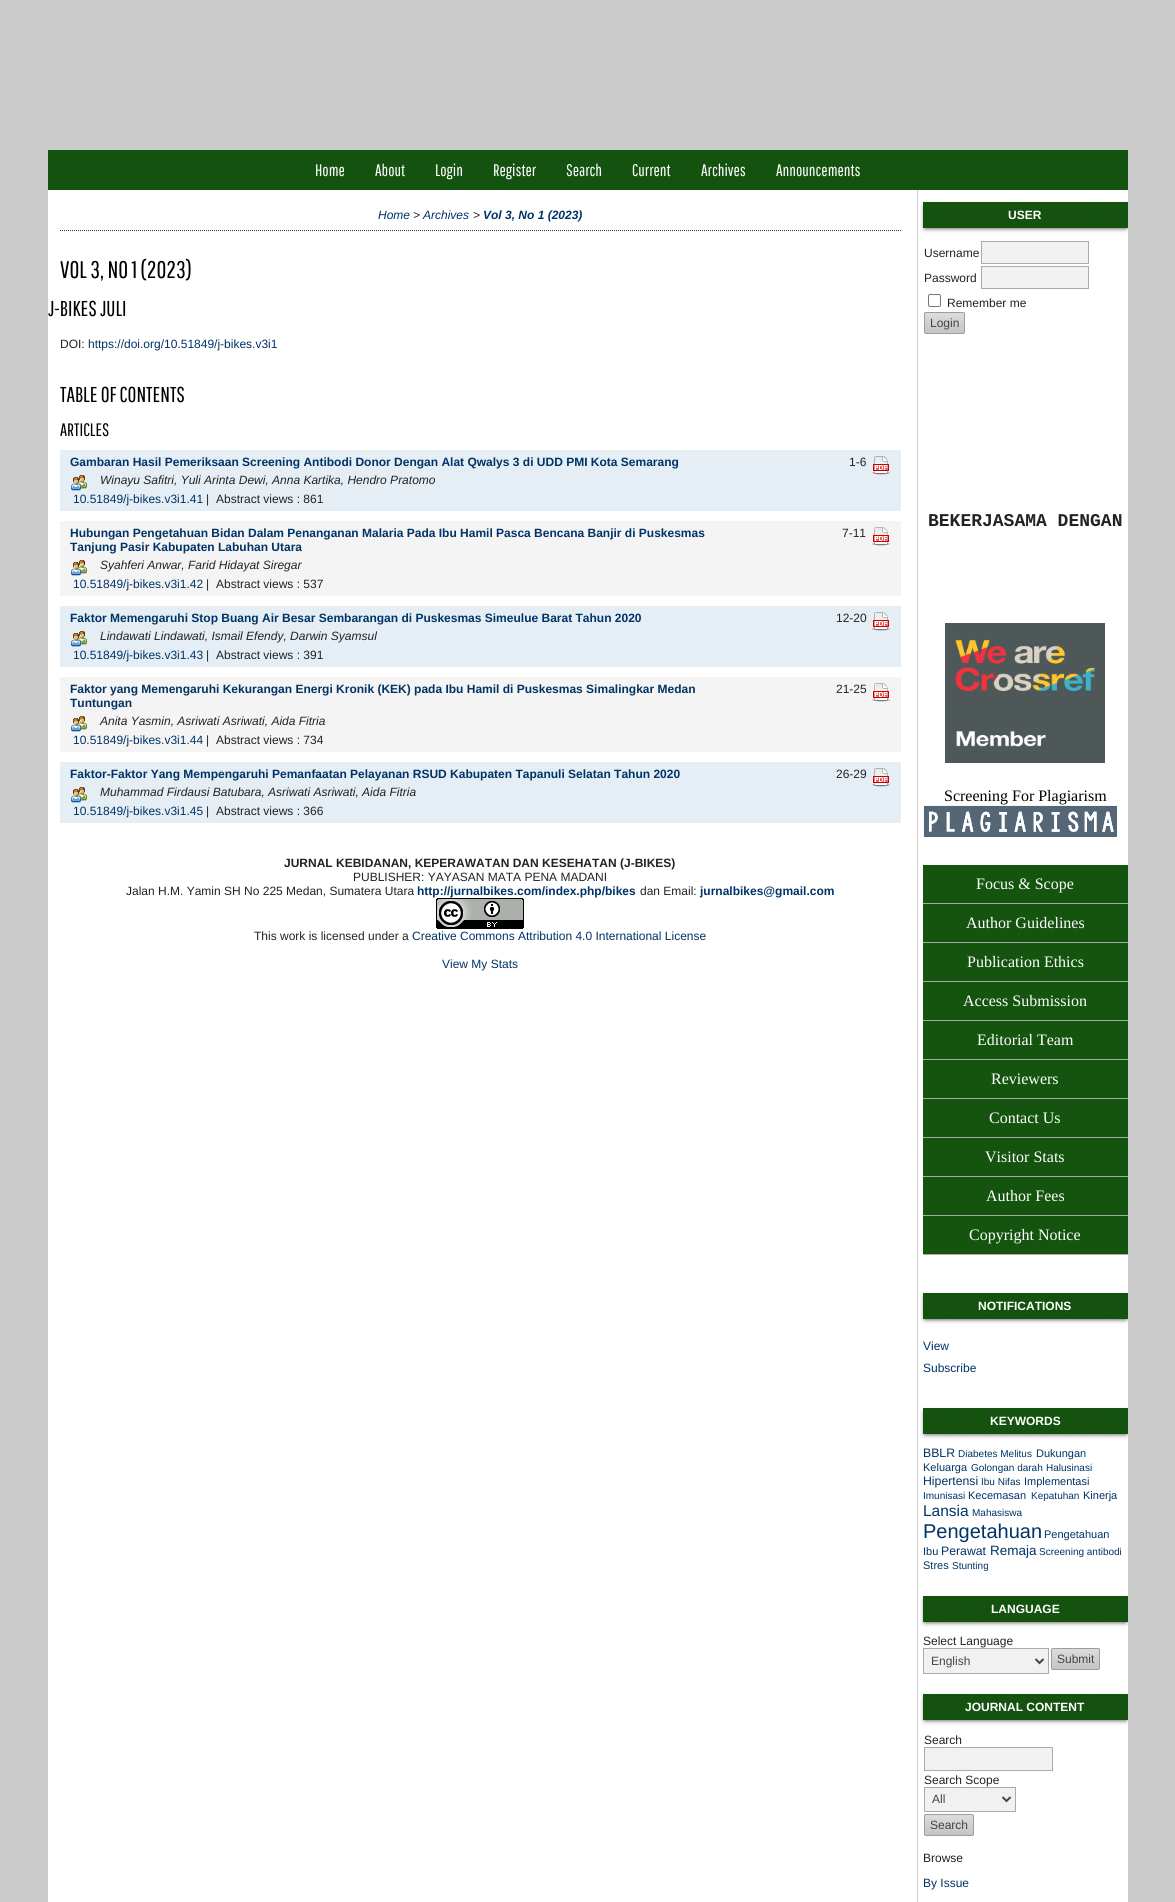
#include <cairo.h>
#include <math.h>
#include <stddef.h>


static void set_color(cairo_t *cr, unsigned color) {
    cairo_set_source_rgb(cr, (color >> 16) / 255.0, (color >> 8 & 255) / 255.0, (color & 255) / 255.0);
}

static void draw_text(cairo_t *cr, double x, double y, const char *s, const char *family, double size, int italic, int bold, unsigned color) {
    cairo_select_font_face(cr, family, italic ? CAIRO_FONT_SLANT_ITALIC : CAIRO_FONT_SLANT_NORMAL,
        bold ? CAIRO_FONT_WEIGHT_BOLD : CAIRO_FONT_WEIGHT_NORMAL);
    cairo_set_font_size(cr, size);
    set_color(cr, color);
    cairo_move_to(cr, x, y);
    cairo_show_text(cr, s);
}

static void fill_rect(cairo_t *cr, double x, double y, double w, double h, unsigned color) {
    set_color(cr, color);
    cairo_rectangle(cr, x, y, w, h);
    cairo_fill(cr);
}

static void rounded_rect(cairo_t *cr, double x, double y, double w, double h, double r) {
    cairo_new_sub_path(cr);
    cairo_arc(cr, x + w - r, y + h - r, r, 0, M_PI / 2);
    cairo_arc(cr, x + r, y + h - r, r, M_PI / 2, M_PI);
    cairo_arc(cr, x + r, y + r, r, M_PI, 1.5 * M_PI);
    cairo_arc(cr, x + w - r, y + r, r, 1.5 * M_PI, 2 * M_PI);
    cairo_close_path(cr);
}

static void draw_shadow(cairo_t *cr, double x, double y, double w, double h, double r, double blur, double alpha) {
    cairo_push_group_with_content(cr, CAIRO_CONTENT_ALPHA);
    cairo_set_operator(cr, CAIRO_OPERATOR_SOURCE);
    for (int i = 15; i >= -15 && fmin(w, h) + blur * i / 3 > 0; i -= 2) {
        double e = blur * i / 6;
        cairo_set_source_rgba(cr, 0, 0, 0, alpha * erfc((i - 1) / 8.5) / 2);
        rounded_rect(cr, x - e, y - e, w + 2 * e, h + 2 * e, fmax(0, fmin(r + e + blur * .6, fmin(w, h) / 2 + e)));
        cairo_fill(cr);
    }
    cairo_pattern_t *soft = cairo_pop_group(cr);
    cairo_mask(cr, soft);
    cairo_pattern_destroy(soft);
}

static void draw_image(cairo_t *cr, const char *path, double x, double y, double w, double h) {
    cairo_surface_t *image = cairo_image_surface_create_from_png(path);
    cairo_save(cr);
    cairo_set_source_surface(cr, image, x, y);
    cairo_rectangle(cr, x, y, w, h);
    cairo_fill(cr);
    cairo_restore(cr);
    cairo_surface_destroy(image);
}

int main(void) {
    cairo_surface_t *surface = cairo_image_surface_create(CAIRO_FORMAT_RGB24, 1175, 1902);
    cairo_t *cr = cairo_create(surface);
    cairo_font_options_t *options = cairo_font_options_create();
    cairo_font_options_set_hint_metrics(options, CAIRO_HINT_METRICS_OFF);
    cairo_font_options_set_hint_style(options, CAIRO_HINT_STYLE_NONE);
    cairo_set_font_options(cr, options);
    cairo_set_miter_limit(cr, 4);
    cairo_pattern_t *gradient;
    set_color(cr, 0xCCCCCC);
    cairo_paint(cr);
    fill_rect(cr, 48, 190, 1080, 1712, 0xFFFFFF);
    fill_rect(cr, 48, 150, 1080, 40, 0x14520F);
    draw_text(cr, 315, 176, "Home", "Pathway Gothic One", 16.75, 0, 0, 0xFFFFFF);
    draw_text(cr, 375, 176, "About", "Pathway Gothic One", 16.75, 0, 0, 0xFFFFFF);
    draw_text(cr, 435, 176, "Login", "Pathway Gothic One", 16.75, 0, 0, 0xFFFFFF);
    draw_text(cr, 493, 176, "Register", "Pathway Gothic One", 16.75, 0, 0, 0xFFFFFF);
    draw_text(cr, 566, 176, "Search", "Pathway Gothic One", 16.75, 0, 0, 0xFFFFFF);
    draw_text(cr, 632, 176, "Current", "Pathway Gothic One", 16.75, 0, 0, 0xFFFFFF);
    draw_text(cr, 701, 176, "Archives", "Pathway Gothic One", 16.75, 0, 0, 0xFFFFFF);
    draw_text(cr, 776, 176, "Announcements", "Pathway Gothic One", 16.75, 0, 0, 0xFFFFFF);
    cairo_new_path(cr);
    cairo_move_to(cr, 60, 230.5);
    cairo_line_to(cr, 901, 230.5);
    set_color(cr, 0x333333);
    cairo_set_line_width(cr, 1);
    cairo_set_dash(cr, (double[]){1, 1}, 2, 0);
    cairo_stroke(cr);
    draw_text(cr, 378, 219, "Home", "Liberation Sans", 12, 1, 0, 0x003366);
    draw_text(cr, 413, 219, ">", "Liberation Sans", 12, 1, 0, 0x222222);
    draw_text(cr, 423, 219, "Archives", "Liberation Sans", 12, 1, 0, 0x003366);
    draw_text(cr, 473, 219, ">", "Liberation Sans", 12, 1, 0, 0x222222);
    draw_text(cr, 483, 219, "Vol 3, No 1 (2023)", "Liberation Sans", 12, 1, 1, 0x003366);
    draw_text(cr, 60, 278, "VOL 3, NO 1 (2023)", "Pathway Gothic One", 24, 0, 0, 0x000000);
    draw_text(cr, 48, 316, "J-BIKES JULI", "Pathway Gothic One", 21.5, 0, 0, 0x000000);
    draw_text(cr, 60, 348, "DOI:", "Liberation Sans", 12, 0, 0, 0x222222);
    draw_text(cr, 88, 348, "https://doi.org/10.51849/j-bikes.v3i1", "Liberation Sans", 12, 0, 0, 0x003366);
    draw_text(cr, 60, 402, "TABLE OF CONTENTS", "Pathway Gothic One", 21.5, 0, 0, 0x000000);
    draw_text(cr, 60, 436, "ARTICLES", "Pathway Gothic One", 18, 0, 0, 0x000000);
    fill_rect(cr, 60, 450, 841, 61, 0xE5EEF5);
    draw_text(cr, 70, 466, "Gambaran Hasil Pemeriksaan Screening Antibodi Donor Dengan Alat Qwalys 3 di UDD PMI Kota Semarang", "Liberation Sans", 12, 0, 1, 0x003366);
    draw_image(cr, "assets/img1.png", 71, 475, 16, 16);
    draw_text(cr, 100, 484, "Winayu Safitri, Yuli Arinta Dewi, Anna Kartika, Hendro Pratomo", "Liberation Sans", 12, 1, 0, 0x222222);
    draw_text(cr, 73, 503, "10.51849/j-bikes.v3i1.41", "Liberation Sans", 12, 0, 0, 0x003366);
    draw_text(cr, 206, 503, "|", "Liberation Sans", 12, 0, 0, 0x222222);
    draw_text(cr, 216, 503, "Abstract views : 861", "Liberation Sans", 12, 0, 0, 0x222222);
    draw_text(cr, 849, 466, "1-6", "Liberation Sans", 12, 0, 0, 0x222222);
    draw_image(cr, "assets/img2.png", 872, 456, 18, 19);
    fill_rect(cr, 60, 521, 841, 75, 0xF4F4F4);
    draw_text(cr, 70, 537, "Hubungan Pengetahuan Bidan Dalam Penanganan Malaria Pada Ibu Hamil Pasca Bencana Banjir di Puskesmas", "Liberation Sans", 12, 0, 1, 0x003366);
    draw_text(cr, 70, 551, "Tanjung Pasir Kabupaten Labuhan Utara", "Liberation Sans", 12, 0, 1, 0x003366);
    draw_image(cr, "assets/img3.png", 71, 560, 16, 16);
    draw_text(cr, 100, 569, "Syahferi Anwar, Farid Hidayat Siregar", "Liberation Sans", 12, 1, 0, 0x222222);
    draw_text(cr, 73, 588, "10.51849/j-bikes.v3i1.42", "Liberation Sans", 12, 0, 0, 0x003366);
    draw_text(cr, 206, 588, "|", "Liberation Sans", 12, 0, 0, 0x222222);
    draw_text(cr, 216, 588, "Abstract views : 537", "Liberation Sans", 12, 0, 0, 0x222222);
    draw_text(cr, 842, 537, "7-11", "Liberation Sans", 12, 0, 0, 0x222222);
    draw_image(cr, "assets/img4.png", 872, 527, 18, 19);
    fill_rect(cr, 60, 606, 841, 61, 0xE5EEF5);
    draw_text(cr, 70, 622, "Faktor Memengaruhi Stop Buang Air Besar Sembarangan di Puskesmas Simeulue Barat Tahun 2020", "Liberation Sans", 12, 0, 1, 0x003366);
    draw_image(cr, "assets/img1.png", 71, 631, 16, 16);
    draw_text(cr, 100, 640, "Lindawati Lindawati, Ismail Efendy, Darwin Syamsul", "Liberation Sans", 12, 1, 0, 0x222222);
    draw_text(cr, 73, 659, "10.51849/j-bikes.v3i1.43", "Liberation Sans", 12, 0, 0, 0x003366);
    draw_text(cr, 206, 659, "|", "Liberation Sans", 12, 0, 0, 0x222222);
    draw_text(cr, 216, 659, "Abstract views : 391", "Liberation Sans", 12, 0, 0, 0x222222);
    draw_text(cr, 836, 622, "12-20", "Liberation Sans", 12, 0, 0, 0x222222);
    draw_image(cr, "assets/img2.png", 872, 612, 18, 19);
    fill_rect(cr, 60, 677, 841, 75, 0xF4F4F4);
    draw_text(cr, 70, 693, "Faktor yang Memengaruhi Kekurangan Energi Kronik (KEK) pada Ibu Hamil di Puskesmas Simalingkar Medan", "Liberation Sans", 12, 0, 1, 0x003366);
    draw_text(cr, 70, 707, "Tuntungan", "Liberation Sans", 12, 0, 1, 0x003366);
    draw_image(cr, "assets/img3.png", 71, 716, 16, 16);
    draw_text(cr, 100, 725, "Anita Yasmin, Asriwati Asriwati, Aida Fitria", "Liberation Sans", 12, 1, 0, 0x222222);
    draw_text(cr, 73, 744, "10.51849/j-bikes.v3i1.44", "Liberation Sans", 12, 0, 0, 0x003366);
    draw_text(cr, 206, 744, "|", "Liberation Sans", 12, 0, 0, 0x222222);
    draw_text(cr, 216, 744, "Abstract views : 734", "Liberation Sans", 12, 0, 0, 0x222222);
    draw_text(cr, 836, 693, "21-25", "Liberation Sans", 12, 0, 0, 0x222222);
    draw_image(cr, "assets/img4.png", 872, 683, 18, 19);
    fill_rect(cr, 60, 762, 841, 61, 0xE5EEF5);
    draw_text(cr, 70, 778, "Faktor-Faktor Yang Mempengaruhi Pemanfaatan Pelayanan RSUD Kabupaten Tapanuli Selatan Tahun 2020", "Liberation Sans", 12, 0, 1, 0x003366);
    draw_image(cr, "assets/img1.png", 71, 787, 16, 16);
    draw_text(cr, 100, 796, "Muhammad Firdausi Batubara, Asriwati Asriwati, Aida Fitria", "Liberation Sans", 12, 1, 0, 0x222222);
    draw_text(cr, 73, 815, "10.51849/j-bikes.v3i1.45", "Liberation Sans", 12, 0, 0, 0x003366);
    draw_text(cr, 206, 815, "|", "Liberation Sans", 12, 0, 0, 0x222222);
    draw_text(cr, 216, 815, "Abstract views : 366", "Liberation Sans", 12, 0, 0, 0x222222);
    draw_text(cr, 836, 778, "26-29", "Liberation Sans", 12, 0, 0, 0x222222);
    draw_image(cr, "assets/img2.png", 872, 768, 18, 19);
    draw_text(cr, 284, 867, "JURNAL KEBIDANAN, KEPERAWATAN DAN KESEHATAN (J-BIKES)", "Liberation Sans", 12, 0, 1, 0x222222);
    draw_text(cr, 353, 881, "PUBLISHER: YAYASAN MATA PENA MADANI", "Liberation Sans", 12, 0, 0, 0x222222);
    draw_text(cr, 126, 895, "Jalan H.M. Yamin SH No 225 Medan, Sumatera Utara", "Liberation Sans", 12, 0, 0, 0x222222);
    draw_text(cr, 417, 895, "http://jurnalbikes.com/index.php/bikes", "Liberation Sans", 12, 0, 1, 0x003366);
    draw_text(cr, 640, 895, "dan Email:", "Liberation Sans", 12, 0, 0, 0x222222);
    draw_text(cr, 700, 895, "jurnalbikes@gmail.com", "Liberation Sans", 12, 0, 1, 0x003366);
    draw_image(cr, "assets/img5.png", 436, 898, 88, 31);
    draw_text(cr, 254, 940, "This work is licensed under a", "Liberation Sans", 12, 0, 0, 0x222222);
    draw_text(cr, 412, 940, "Creative Commons Attribution 4.0 International License", "Liberation Sans", 12, 0, 0, 0x003366);
    draw_text(cr, 442, 968, "View My Stats", "Liberation Sans", 12, 0, 0, 0x003366);
    fill_rect(cr, 917, 190, 1, 1712, 0xCCCCCC);
    cairo_save(cr);
    cairo_rectangle(cr, 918, 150, 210, 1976);
    cairo_clip(cr);
    set_color(cr, 0x333333);
    draw_shadow(cr, 925, 206, 201, 22, 0, 2.5, 1);
    cairo_restore(cr);
    fill_rect(cr, 923, 202, 205, 26, 0x14540F);
    draw_image(cr, "assets/img6.png", 923, 202, 205, 26);
    draw_text(cr, 1008, 219, "USER", "Liberation Sans", 12, 0, 1, 0xFFFFFF);
    draw_text(cr, 924, 257, "Username", "Liberation Sans", 12, 0, 0, 0x222222);
    set_color(cr, 0xF1F1F1);
    cairo_rectangle(cr, 981.5, 241.5, 107, 22);
    cairo_fill_preserve(cr);
    set_color(cr, 0xAAAAAA);
    cairo_set_dash(cr, NULL, 0, 0);
    cairo_stroke(cr);
    draw_text(cr, 924, 282, "Password", "Liberation Sans", 12, 0, 0, 0x222222);
    set_color(cr, 0xF1F1F1);
    cairo_rectangle(cr, 981.5, 266.5, 107, 22);
    cairo_fill_preserve(cr);
    set_color(cr, 0xAAAAAA);
    cairo_stroke(cr);
    rounded_rect(cr, 928.5, 294.5, 12, 12, 1.5);
    set_color(cr, 0x767676);
    cairo_stroke(cr);
    draw_text(cr, 947, 307, "Remember me", "Liberation Sans", 12, 0, 0, 0x222222);
    cairo_save(cr);
    rounded_rect(cr, 924, 312, 41, 22, 2);
    cairo_clip(cr);
    gradient = cairo_pattern_create_linear(945, 313, 945, 333);
    cairo_pattern_add_color_stop_rgba(gradient, 0, 0.867, 0.867, 0.867, 1);
    cairo_pattern_add_color_stop_rgba(gradient, 1, 0.769, 0.769, 0.769, 1);
    cairo_set_source(cr, gradient);
    cairo_pattern_destroy(gradient);
    cairo_rectangle(cr, 924, 313, 41, 20);
    cairo_fill(cr);
    cairo_restore(cr);
    rounded_rect(cr, 924.5, 312.5, 40, 21, 1.5);
    set_color(cr, 0x9D9D9D);
    cairo_stroke(cr);
    draw_text(cr, 930, 327, "Login", "Liberation Sans", 12, 0, 0, 0x444444);
    draw_text(cr, 928, 526, "BEKERJASAMA DENGAN", "Liberation Mono", 18, 0, 1, 0x222222);
    draw_image(cr, "assets/img7.png", 945, 623, 160, 140);
    draw_text(cr, 944, 801, "Screening For Plagiarism", "Liberation Serif", 16, 0, 0, 0x000000);
    draw_image(cr, "assets/img8.png", 923, 805, 194, 32);
    fill_rect(cr, 923, 865, 205, 38, 0x14540F);
    fill_rect(cr, 923, 903, 205, 1, 0xAAAAAA);
    draw_text(cr, 976, 889, "Focus & Scope", "Liberation Serif", 16, 0, 0, 0xFFFFFF);
    fill_rect(cr, 923, 904, 205, 38, 0x14540F);
    fill_rect(cr, 923, 942, 205, 1, 0xAAAAAA);
    draw_text(cr, 966, 928, "Author Guidelines", "Liberation Serif", 16, 0, 0, 0xFFFFFF);
    fill_rect(cr, 923, 943, 205, 38, 0x14540F);
    fill_rect(cr, 923, 981, 205, 1, 0xAAAAAA);
    draw_text(cr, 967, 967, "Publication Ethics", "Liberation Serif", 16, 0, 0, 0xFFFFFF);
    fill_rect(cr, 923, 982, 205, 38, 0x14540F);
    fill_rect(cr, 923, 1020, 205, 1, 0xAAAAAA);
    draw_text(cr, 963, 1006, "Access Submission", "Liberation Serif", 16, 0, 0, 0xFFFFFF);
    fill_rect(cr, 923, 1021, 205, 38, 0x14540F);
    fill_rect(cr, 923, 1059, 205, 1, 0xAAAAAA);
    draw_text(cr, 977, 1045, "Editorial Team", "Liberation Serif", 16, 0, 0, 0xFFFFFF);
    fill_rect(cr, 923, 1060, 205, 38, 0x14540F);
    fill_rect(cr, 923, 1098, 205, 1, 0xAAAAAA);
    draw_text(cr, 991, 1084, "Reviewers", "Liberation Serif", 16, 0, 0, 0xFFFFFF);
    fill_rect(cr, 923, 1099, 205, 38, 0x14540F);
    fill_rect(cr, 923, 1137, 205, 1, 0xAAAAAA);
    draw_text(cr, 989, 1123, "Contact Us", "Liberation Serif", 16, 0, 0, 0xFFFFFF);
    fill_rect(cr, 923, 1138, 205, 38, 0x14540F);
    fill_rect(cr, 923, 1176, 205, 1, 0xAAAAAA);
    draw_text(cr, 985, 1162, "Visitor Stats", "Liberation Serif", 16, 0, 0, 0xFFFFFF);
    fill_rect(cr, 923, 1177, 205, 38, 0x14540F);
    fill_rect(cr, 923, 1215, 205, 1, 0xAAAAAA);
    draw_text(cr, 986, 1201, "Author Fees", "Liberation Serif", 16, 0, 0, 0xFFFFFF);
    fill_rect(cr, 923, 1216, 205, 38, 0x14540F);
    fill_rect(cr, 923, 1254, 205, 1, 0xAAAAAA);
    draw_text(cr, 969, 1240, "Copyright Notice", "Liberation Serif", 16, 0, 0, 0xFFFFFF);
    cairo_save(cr);
    cairo_rectangle(cr, 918, 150, 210, 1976);
    cairo_clip(cr);
    set_color(cr, 0x333333);
    draw_shadow(cr, 925, 1297, 201, 22, 0, 2.5, 1);
    cairo_restore(cr);
    fill_rect(cr, 923, 1293, 205, 26, 0x14540F);
    draw_image(cr, "assets/img6.png", 923, 1293, 205, 26);
    draw_text(cr, 978, 1310, "NOTIFICATIONS", "Liberation Sans", 12, 0, 1, 0xFFFFFF);
    draw_text(cr, 923, 1350, "View", "Liberation Sans", 12, 0, 0, 0x003366);
    draw_text(cr, 923, 1372, "Subscribe", "Liberation Sans", 12, 0, 0, 0x003366);
    cairo_save(cr);
    cairo_rectangle(cr, 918, 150, 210, 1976);
    cairo_clip(cr);
    set_color(cr, 0x333333);
    draw_shadow(cr, 925, 1412, 201, 22, 0, 2.5, 1);
    cairo_restore(cr);
    fill_rect(cr, 923, 1408, 205, 26, 0x14540F);
    draw_image(cr, "assets/img6.png", 923, 1408, 205, 26);
    draw_text(cr, 990, 1425, "KEYWORDS", "Liberation Sans", 12, 0, 1, 0xFFFFFF);
    draw_text(cr, 923, 1457, "BBLR", "Liberation Sans", 12.25, 0, 0, 0x003366);
    draw_text(cr, 958, 1457, "Diabetes Melitus", "Liberation Sans", 10, 0, 0, 0x003366);
    draw_text(cr, 1036, 1457, "Dukungan", "Liberation Sans", 11, 0, 0, 0x003366);
    draw_text(cr, 923, 1471, "Keluarga", "Liberation Sans", 11, 0, 0, 0x003366);
    draw_text(cr, 971, 1471, "Golongan darah", "Liberation Sans", 10, 0, 0, 0x003366);
    draw_text(cr, 1046, 1471, "Halusinasi", "Liberation Sans", 10, 0, 0, 0x003366);
    draw_text(cr, 923, 1485, "Hipertensi", "Liberation Sans", 12.25, 0, 0, 0x003366);
    draw_text(cr, 981, 1485, "Ibu Nifas", "Liberation Sans", 10, 0, 0, 0x003366);
    draw_text(cr, 1024, 1485, "Implementasi", "Liberation Sans", 11, 0, 0, 0x003366);
    draw_text(cr, 923, 1499, "Imunisasi", "Liberation Sans", 10, 0, 0, 0x003366);
    draw_text(cr, 968, 1499, "Kecemasan", "Liberation Sans", 11, 0, 0, 0x003366);
    draw_text(cr, 1031, 1499, "Kepatuhan", "Liberation Sans", 10, 0, 0, 0x003366);
    draw_text(cr, 1083, 1499, "Kinerja", "Liberation Sans", 11, 0, 0, 0x003366);
    draw_text(cr, 923, 1516, "Lansia", "Liberation Sans", 15.5, 0, 0, 0x003366);
    draw_text(cr, 972, 1516, "Mahasiswa", "Liberation Sans", 10, 0, 0, 0x003366);
    draw_text(cr, 923, 1538, "Pengetahuan", "Liberation Sans", 20, 0, 0, 0x003366);
    draw_text(cr, 1044, 1538, "Pengetahuan", "Liberation Sans", 11, 0, 0, 0x003366);
    draw_text(cr, 923, 1555, "Ibu", "Liberation Sans", 11, 0, 0, 0x003366);
    draw_text(cr, 941, 1555, "Perawat", "Liberation Sans", 12.25, 0, 0, 0x003366);
    draw_text(cr, 990, 1555, "Remaja", "Liberation Sans", 13.5, 0, 0, 0x003366);
    draw_text(cr, 1039, 1555, "Screening antibodi", "Liberation Sans", 10, 0, 0, 0x003366);
    draw_text(cr, 923, 1569, "Stres", "Liberation Sans", 11, 0, 0, 0x003366);
    draw_text(cr, 952, 1569, "Stunting", "Liberation Sans", 10, 0, 0, 0x003366);
    cairo_save(cr);
    cairo_rectangle(cr, 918, 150, 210, 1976);
    cairo_clip(cr);
    set_color(cr, 0x333333);
    draw_shadow(cr, 925, 1600, 201, 22, 0, 2.5, 1);
    cairo_restore(cr);
    fill_rect(cr, 923, 1596, 205, 26, 0x14540F);
    draw_image(cr, "assets/img6.png", 923, 1596, 205, 26);
    draw_text(cr, 991, 1613, "LANGUAGE", "Liberation Sans", 12, 0, 1, 0xFFFFFF);
    draw_text(cr, 923, 1645, "Select Language", "Liberation Sans", 12, 0, 0, 0x222222);
    set_color(cr, 0xF1F1F1);
    cairo_rectangle(cr, 923.5, 1648.5, 125, 25);
    cairo_fill_preserve(cr);
    set_color(cr, 0xAAAAAA);
    cairo_stroke(cr);
    cairo_new_path(cr);
    cairo_move_to(cr, 1035.5, 1659);
    cairo_line_to(cr, 1039.5, 1663);
    cairo_line_to(cr, 1043.5, 1659);
    set_color(cr, 0x444444);
    cairo_set_line_width(cr, 2);
    cairo_stroke(cr);
    draw_text(cr, 931, 1665, "English", "Liberation Sans", 12, 0, 0, 0x444444);
    cairo_save(cr);
    rounded_rect(cr, 1051, 1648, 49, 22, 2);
    cairo_clip(cr);
    gradient = cairo_pattern_create_linear(1076, 1649, 1076, 1669);
    cairo_pattern_add_color_stop_rgba(gradient, 0, 0.867, 0.867, 0.867, 1);
    cairo_pattern_add_color_stop_rgba(gradient, 1, 0.769, 0.769, 0.769, 1);
    cairo_set_source(cr, gradient);
    cairo_pattern_destroy(gradient);
    cairo_rectangle(cr, 1051, 1649, 49, 20);
    cairo_fill(cr);
    cairo_restore(cr);
    rounded_rect(cr, 1051.5, 1648.5, 48, 21, 1.5);
    set_color(cr, 0x9D9D9D);
    cairo_set_line_width(cr, 1);
    cairo_stroke(cr);
    draw_text(cr, 1057, 1663, "Submit", "Liberation Sans", 12, 0, 0, 0x444444);
    cairo_save(cr);
    cairo_rectangle(cr, 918, 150, 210, 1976);
    cairo_clip(cr);
    set_color(cr, 0x333333);
    draw_shadow(cr, 925, 1698, 201, 22, 0, 2.5, 1);
    cairo_restore(cr);
    fill_rect(cr, 923, 1694, 205, 26, 0x14540F);
    draw_image(cr, "assets/img6.png", 923, 1694, 205, 26);
    draw_text(cr, 965, 1711, "JOURNAL CONTENT", "Liberation Sans", 12, 0, 1, 0xFFFFFF);
    draw_text(cr, 924, 1744, "Search", "Liberation Sans", 12, 0, 0, 0x222222);
    set_color(cr, 0xF1F1F1);
    cairo_rectangle(cr, 924.5, 1747.5, 128, 23);
    cairo_fill_preserve(cr);
    set_color(cr, 0xAAAAAA);
    cairo_stroke(cr);
    draw_text(cr, 924, 1784, "Search Scope", "Liberation Sans", 12, 0, 0, 0x222222);
    set_color(cr, 0xF1F1F1);
    cairo_rectangle(cr, 924.5, 1787.5, 91, 24);
    cairo_fill_preserve(cr);
    set_color(cr, 0xAAAAAA);
    cairo_stroke(cr);
    cairo_new_path(cr);
    cairo_move_to(cr, 1002.5, 1797);
    cairo_line_to(cr, 1006.5, 1801);
    cairo_line_to(cr, 1010.5, 1797);
    set_color(cr, 0x444444);
    cairo_set_line_width(cr, 2);
    cairo_stroke(cr);
    draw_text(cr, 932, 1803, "All", "Liberation Sans", 12, 0, 0, 0x444444);
    cairo_save(cr);
    rounded_rect(cr, 924, 1814, 50, 22, 2);
    cairo_clip(cr);
    gradient = cairo_pattern_create_linear(949, 1815, 949, 1835);
    cairo_pattern_add_color_stop_rgba(gradient, 0, 0.867, 0.867, 0.867, 1);
    cairo_pattern_add_color_stop_rgba(gradient, 1, 0.769, 0.769, 0.769, 1);
    cairo_set_source(cr, gradient);
    cairo_pattern_destroy(gradient);
    cairo_rectangle(cr, 924, 1815, 50, 20);
    cairo_fill(cr);
    cairo_restore(cr);
    rounded_rect(cr, 924.5, 1814.5, 49, 21, 1.5);
    set_color(cr, 0x9D9D9D);
    cairo_set_line_width(cr, 1);
    cairo_stroke(cr);
    draw_text(cr, 930, 1829, "Search", "Liberation Sans", 12, 0, 0, 0x444444);
    draw_text(cr, 923, 1862, "Browse", "Liberation Sans", 12, 0, 0, 0x222222);
    draw_text(cr, 923, 1887, "By Issue", "Liberation Sans", 12, 0, 0, 0x003366);
    cairo_surface_write_to_png(surface, "output.png");
    cairo_font_options_destroy(options);
    cairo_destroy(cr);
    cairo_surface_destroy(surface);
    return 0;
}
